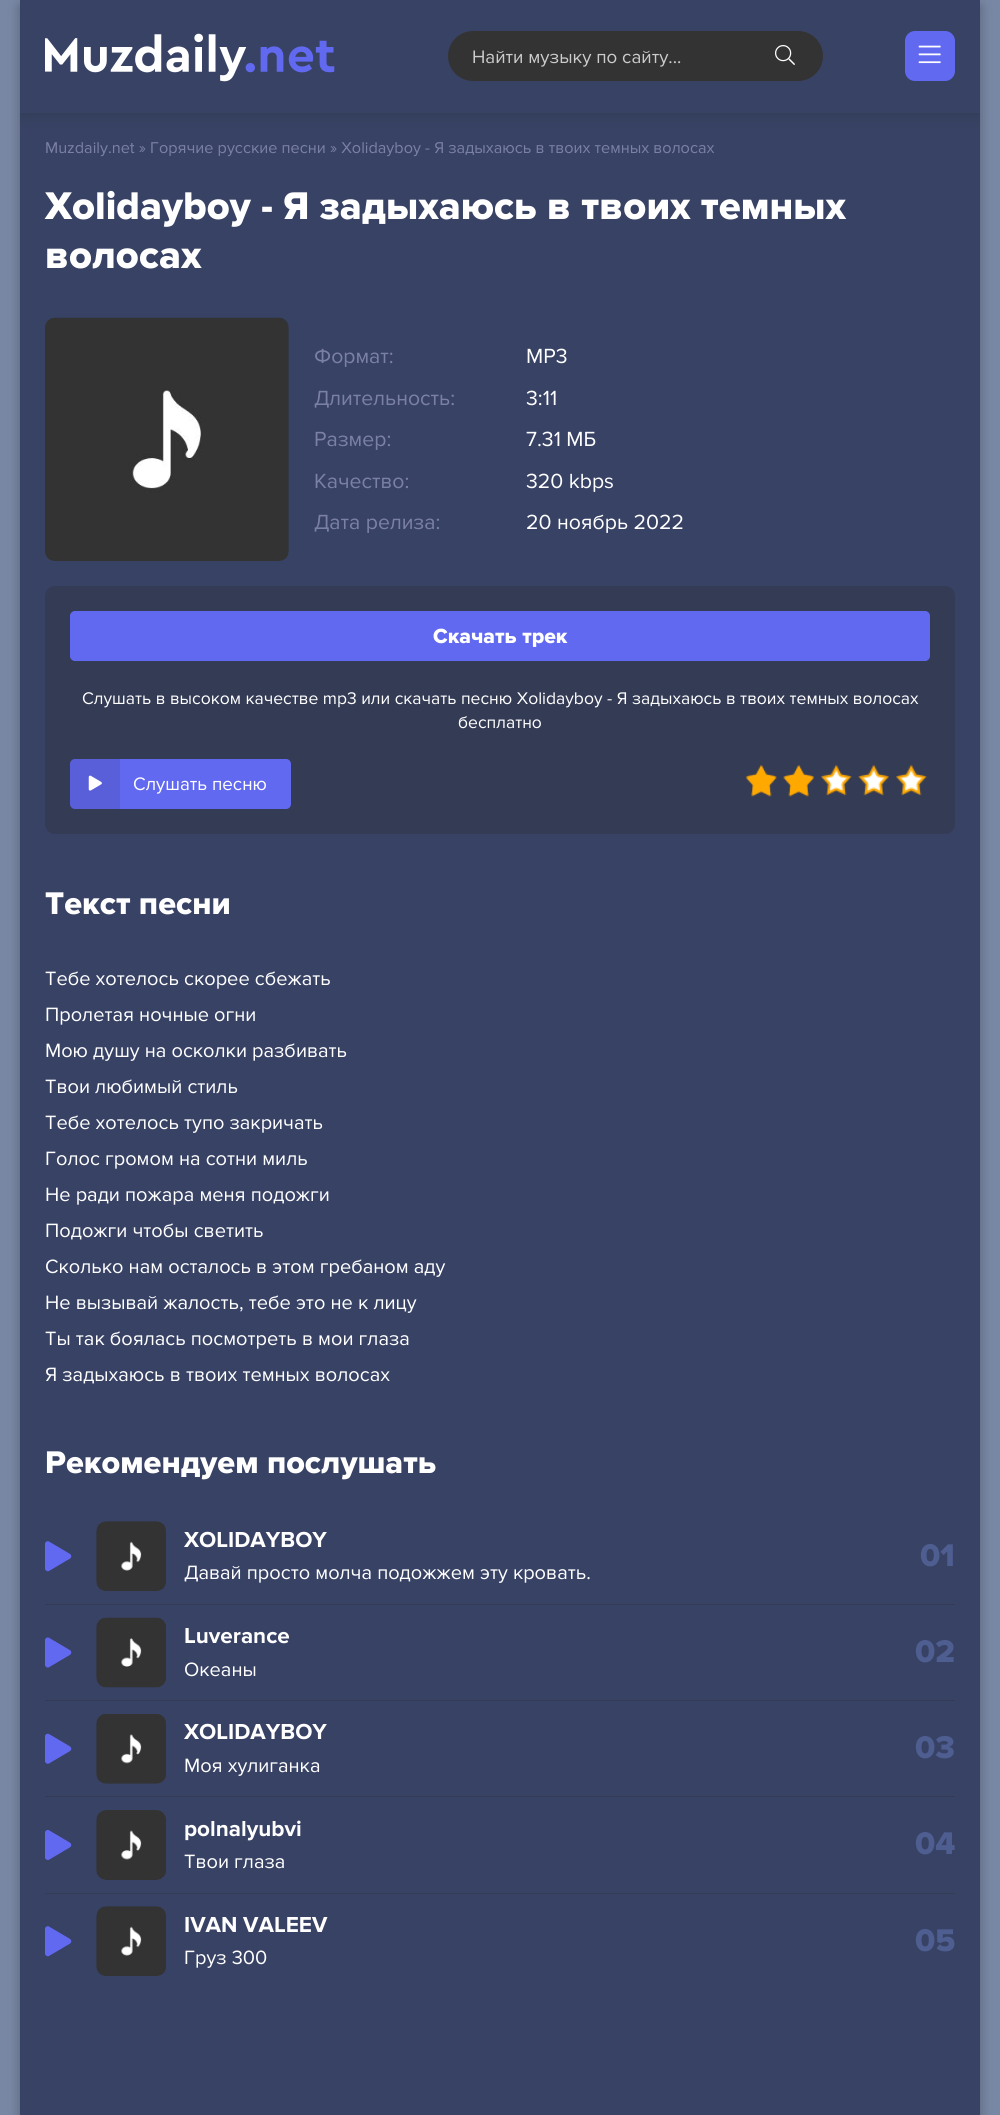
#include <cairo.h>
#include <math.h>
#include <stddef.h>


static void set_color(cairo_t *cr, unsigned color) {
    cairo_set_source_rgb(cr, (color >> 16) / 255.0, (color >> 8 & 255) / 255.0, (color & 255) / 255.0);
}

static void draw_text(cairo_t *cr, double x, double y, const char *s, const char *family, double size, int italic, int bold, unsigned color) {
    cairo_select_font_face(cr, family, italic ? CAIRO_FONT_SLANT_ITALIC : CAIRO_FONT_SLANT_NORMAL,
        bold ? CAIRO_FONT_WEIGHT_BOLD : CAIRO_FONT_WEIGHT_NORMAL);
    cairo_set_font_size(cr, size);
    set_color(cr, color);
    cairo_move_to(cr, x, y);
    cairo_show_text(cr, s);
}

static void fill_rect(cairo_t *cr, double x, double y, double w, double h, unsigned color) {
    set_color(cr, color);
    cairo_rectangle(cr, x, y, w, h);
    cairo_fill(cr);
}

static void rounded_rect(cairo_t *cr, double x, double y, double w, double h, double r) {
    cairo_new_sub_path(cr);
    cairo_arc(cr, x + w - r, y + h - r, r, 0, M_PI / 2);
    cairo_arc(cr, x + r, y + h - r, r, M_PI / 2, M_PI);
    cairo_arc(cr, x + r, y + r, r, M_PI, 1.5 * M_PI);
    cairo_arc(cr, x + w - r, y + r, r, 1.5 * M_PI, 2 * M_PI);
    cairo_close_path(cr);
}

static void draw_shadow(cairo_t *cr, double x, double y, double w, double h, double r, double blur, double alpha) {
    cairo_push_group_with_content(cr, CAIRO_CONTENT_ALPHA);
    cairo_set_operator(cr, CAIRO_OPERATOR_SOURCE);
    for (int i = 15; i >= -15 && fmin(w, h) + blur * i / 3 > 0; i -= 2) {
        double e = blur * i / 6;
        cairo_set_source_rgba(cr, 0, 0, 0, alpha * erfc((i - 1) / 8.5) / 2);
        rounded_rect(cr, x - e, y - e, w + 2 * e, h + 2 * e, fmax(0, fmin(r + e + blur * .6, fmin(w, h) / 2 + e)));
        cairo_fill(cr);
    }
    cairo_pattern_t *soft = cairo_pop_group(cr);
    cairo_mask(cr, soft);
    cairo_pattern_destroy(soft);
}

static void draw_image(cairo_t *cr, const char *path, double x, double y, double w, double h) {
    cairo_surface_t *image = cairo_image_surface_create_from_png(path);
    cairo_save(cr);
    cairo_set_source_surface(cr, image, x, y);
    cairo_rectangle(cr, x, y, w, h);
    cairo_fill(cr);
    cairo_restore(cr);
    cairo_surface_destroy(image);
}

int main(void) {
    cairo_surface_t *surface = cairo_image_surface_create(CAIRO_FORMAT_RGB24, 1000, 2115);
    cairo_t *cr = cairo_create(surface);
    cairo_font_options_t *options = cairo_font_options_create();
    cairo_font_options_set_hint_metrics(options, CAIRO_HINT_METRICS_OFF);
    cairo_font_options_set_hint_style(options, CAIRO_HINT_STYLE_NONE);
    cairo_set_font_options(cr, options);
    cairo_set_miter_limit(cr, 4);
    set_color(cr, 0x7887A4);
    cairo_paint(cr);
    set_color(cr, 0x21252F);
    draw_shadow(cr, 20, 6, 960, 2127, 0, 6, 0.37);
    fill_rect(cr, 20, 113, 960, 2002, 0x384265);
    cairo_save(cr);
    cairo_rectangle(cr, 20, 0, 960, 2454);
    cairo_clip(cr);
    set_color(cr, 0x263740);
    draw_shadow(cr, 20, 0, 960, 113, 0, 9.5, 0.6);
    cairo_restore(cr);
    fill_rect(cr, 20, 0, 960, 113, 0x384265);
    draw_image(cr, "assets/img1.png", 45, 33, 290, 49);
    set_color(cr, 0x333333);
    rounded_rect(cr, 448, 31, 375, 50, 25);
    cairo_fill(cr);
    draw_text(cr, 472, 63, "Найти музыку по сайту...", "Proxima Nova", 18.75, 0, 0, 0xCCCCCC);
    draw_image(cr, "assets/img2.png", 775, 45, 20, 20);
    set_color(cr, 0x6269F1);
    rounded_rect(cr, 905, 31, 50, 50, 10);
    cairo_fill(cr);
    draw_image(cr, "assets/img3.png", 918, 45, 23, 19);
    draw_text(cr, 45, 153, "Muzdaily.net » Горячие русские песни » Xolidayboy - Я задыхаюсь в твоих темных волосах", "Proxima Nova", 16.25, 0, 0, 0x7B81A4);
    draw_text(cr, 45, 219, "Xolidayboy - Я задыхаюсь в твоих темных", "Proxima Nova ExtraBold", 40, 0, 0, 0xFFFFFF);
    draw_text(cr, 45, 268, "волосах", "Proxima Nova ExtraBold", 40, 0, 0, 0xFFFFFF);
    draw_image(cr, "assets/img4.png", 45, 317, 244, 244);
    draw_text(cr, 314, 363, "Формат:", "Proxima Nova", 21.25, 0, 0, 0x7B81A4);
    draw_text(cr, 526, 363, "MP3", "Proxima Nova", 21.25, 0, 0, 0xFFFFFF);
    draw_text(cr, 314, 405, "Длительность:", "Proxima Nova", 21.25, 0, 0, 0x7B81A4);
    draw_text(cr, 526, 405, "3:11", "Proxima Nova", 21.25, 0, 0, 0xFFFFFF);
    draw_text(cr, 314, 446, "Размер:", "Proxima Nova", 21.25, 0, 0, 0x7B81A4);
    draw_text(cr, 526, 446, "7.31 МБ", "Proxima Nova", 21.25, 0, 0, 0xFFFFFF);
    draw_text(cr, 314, 488, "Качество:", "Proxima Nova", 21.25, 0, 0, 0x7B81A4);
    draw_text(cr, 526, 488, "320 kbps", "Proxima Nova", 21.25, 0, 0, 0xFFFFFF);
    draw_text(cr, 314, 529, "Дата релиза:", "Proxima Nova", 21.25, 0, 0, 0x7B81A4);
    draw_text(cr, 526, 529, "20 ноябрь 2022", "Proxima Nova", 21.25, 0, 0, 0xFFFFFF);
    set_color(cr, 0x343B55);
    rounded_rect(cr, 45, 586, 910, 248, 10);
    cairo_fill(cr);
    set_color(cr, 0x6269F1);
    rounded_rect(cr, 70, 611, 860, 50, 5);
    cairo_fill(cr);
    draw_text(cr, 433, 643, "Скачать трек", "Proxima Nova ExtraBold", 21.25, 0, 0, 0xFFFFFF);
    draw_text(cr, 82, 704, "Слушать в высоком качестве mp3 или скачать песню Xolidayboy - Я задыхаюсь в твоих темных волосах", "Proxima Nova", 17.5, 0, 0, 0xFFFFFF);
    draw_text(cr, 458, 728, "бесплатно", "Proxima Nova", 17.5, 0, 0, 0xFFFFFF);
    set_color(cr, 0x6269F1);
    rounded_rect(cr, 70, 759, 221, 50, 5);
    cairo_fill(cr);
    cairo_set_source_rgba(cr, 0, 0, 0, 0.1);
    cairo_new_path(cr);
    cairo_move_to(cr, 75, 759);
    cairo_line_to(cr, 120, 759);
    cairo_line_to(cr, 120, 809);
    cairo_line_to(cr, 75, 809);
    cairo_curve_to(cr, 72, 809, 70, 807, 70, 804);
    cairo_line_to(cr, 70, 764);
    cairo_curve_to(cr, 70, 761, 72, 759, 75, 759);
    cairo_close_path(cr);
    cairo_fill(cr);
    draw_image(cr, "assets/img5.png", 88, 775, 14, 16);
    draw_text(cr, 133, 790, "Слушать песню", "Proxima Nova", 18.75, 0, 0, 0xFFFFFF);
    draw_image(cr, "assets/img6.png", 746, 764, 181, 32);
    draw_image(cr, "assets/img7.png", 746, 766, 68, 31);
    draw_text(cr, 45, 914, "Текст песни", "Proxima Nova ExtraBold", 32.5, 0, 0, 0xFFFFFF);
    draw_text(cr, 45, 985, "Тебе хотелось скорее сбежать", "Proxima Nova", 20, 0, 0, 0xFFFFFF);
    draw_text(cr, 45, 1021, "Пролетая ночные огни", "Proxima Nova", 20, 0, 0, 0xFFFFFF);
    draw_text(cr, 45, 1057, "Мою душу на осколки разбивать", "Proxima Nova", 20, 0, 0, 0xFFFFFF);
    draw_text(cr, 45, 1093, "Твои любимый стиль", "Proxima Nova", 20, 0, 0, 0xFFFFFF);
    draw_text(cr, 45, 1129, "Тебе хотелось тупо закричать", "Proxima Nova", 20, 0, 0, 0xFFFFFF);
    draw_text(cr, 45, 1165, "Голос громом на сотни миль", "Proxima Nova", 20, 0, 0, 0xFFFFFF);
    draw_text(cr, 45, 1201, "Не ради пожара меня подожги", "Proxima Nova", 20, 0, 0, 0xFFFFFF);
    draw_text(cr, 45, 1237, "Подожги чтобы светить", "Proxima Nova", 20, 0, 0, 0xFFFFFF);
    draw_text(cr, 45, 1273, "Сколько нам осталось в этом гребаном аду", "Proxima Nova", 20, 0, 0, 0xFFFFFF);
    draw_text(cr, 45, 1309, "Не вызывай жалость, тебе это не к лицу", "Proxima Nova", 20, 0, 0, 0xFFFFFF);
    draw_text(cr, 45, 1345, "Ты так боялась посмотреть в мои глаза", "Proxima Nova", 20, 0, 0, 0xFFFFFF);
    draw_text(cr, 45, 1381, "Я задыхаюсь в твоих темных волосах", "Proxima Nova", 20, 0, 0, 0xFFFFFF);
    draw_text(cr, 45, 1473, "Рекомендуем послушать", "Proxima Nova ExtraBold", 32.5, 0, 0, 0xFFFFFF);
    fill_rect(cr, 45, 1604, 910, 1, 0x343B55);
    draw_image(cr, "assets/img8.png", 45, 1541, 27, 31);
    draw_image(cr, "assets/img9.png", 96, 1521, 70, 70);
    draw_text(cr, 184, 1547, "XOLIDAYBOY", "Proxima Nova", 22.5, 0, 1, 0xFFFFFF);
    draw_text(cr, 184, 1579, "Давай просто молча подожжем эту кровать.", "Proxima Nova", 20, 0, 0, 0xFFFFFF);
    draw_text(cr, 920, 1566, "01", "Proxima Nova ExtraBold", 32.5, 0, 0, 0x4F5E91);
    fill_rect(cr, 45, 1700, 910, 1, 0x343B55);
    draw_image(cr, "assets/img10.png", 45, 1637, 27, 31);
    draw_image(cr, "assets/img11.png", 96, 1617, 70, 71);
    draw_text(cr, 184, 1643, "Luverance", "Proxima Nova", 22.5, 0, 1, 0xFFFFFF);
    draw_text(cr, 184, 1676, "Океаны", "Proxima Nova", 20, 0, 0, 0xFFFFFF);
    draw_text(cr, 915, 1662, "02", "Proxima Nova ExtraBold", 32.5, 0, 0, 0x4F5E91);
    fill_rect(cr, 45, 1796, 910, 1, 0x343B55);
    draw_image(cr, "assets/img12.png", 45, 1733, 27, 31);
    draw_image(cr, "assets/img13.png", 96, 1714, 70, 70);
    draw_text(cr, 184, 1739, "XOLIDAYBOY", "Proxima Nova", 22.5, 0, 1, 0xFFFFFF);
    draw_text(cr, 184, 1772, "Моя хулиганка", "Proxima Nova", 20, 0, 0, 0xFFFFFF);
    draw_text(cr, 915, 1758, "03", "Proxima Nova ExtraBold", 32.5, 0, 0, 0x4F5E91);
    fill_rect(cr, 45, 1893, 910, 1, 0x343B55);
    draw_image(cr, "assets/img14.png", 45, 1830, 27, 30);
    draw_image(cr, "assets/img15.png", 96, 1810, 70, 70);
    draw_text(cr, 184, 1836, "polnalyubvi", "Proxima Nova", 22.5, 0, 1, 0xFFFFFF);
    draw_text(cr, 184, 1868, "Твои глаза", "Proxima Nova", 20, 0, 0, 0xFFFFFF);
    draw_text(cr, 915, 1854, "04", "Proxima Nova ExtraBold", 32.5, 0, 0, 0x4F5E91);
    draw_image(cr, "assets/img8.png", 45, 1926, 27, 31);
    draw_image(cr, "assets/img16.png", 96, 1906, 70, 70);
    draw_text(cr, 184, 1932, "IVAN VALEEV", "Proxima Nova", 22.5, 0, 1, 0xFFFFFF);
    draw_text(cr, 184, 1964, "Груз 300", "Proxima Nova", 20, 0, 0, 0xFFFFFF);
    draw_text(cr, 915, 1951, "05", "Proxima Nova ExtraBold", 32.5, 0, 0, 0x4F5E91);
    cairo_surface_write_to_png(surface, "output.png");
    cairo_font_options_destroy(options);
    cairo_destroy(cr);
    cairo_surface_destroy(surface);
    return 0;
}
